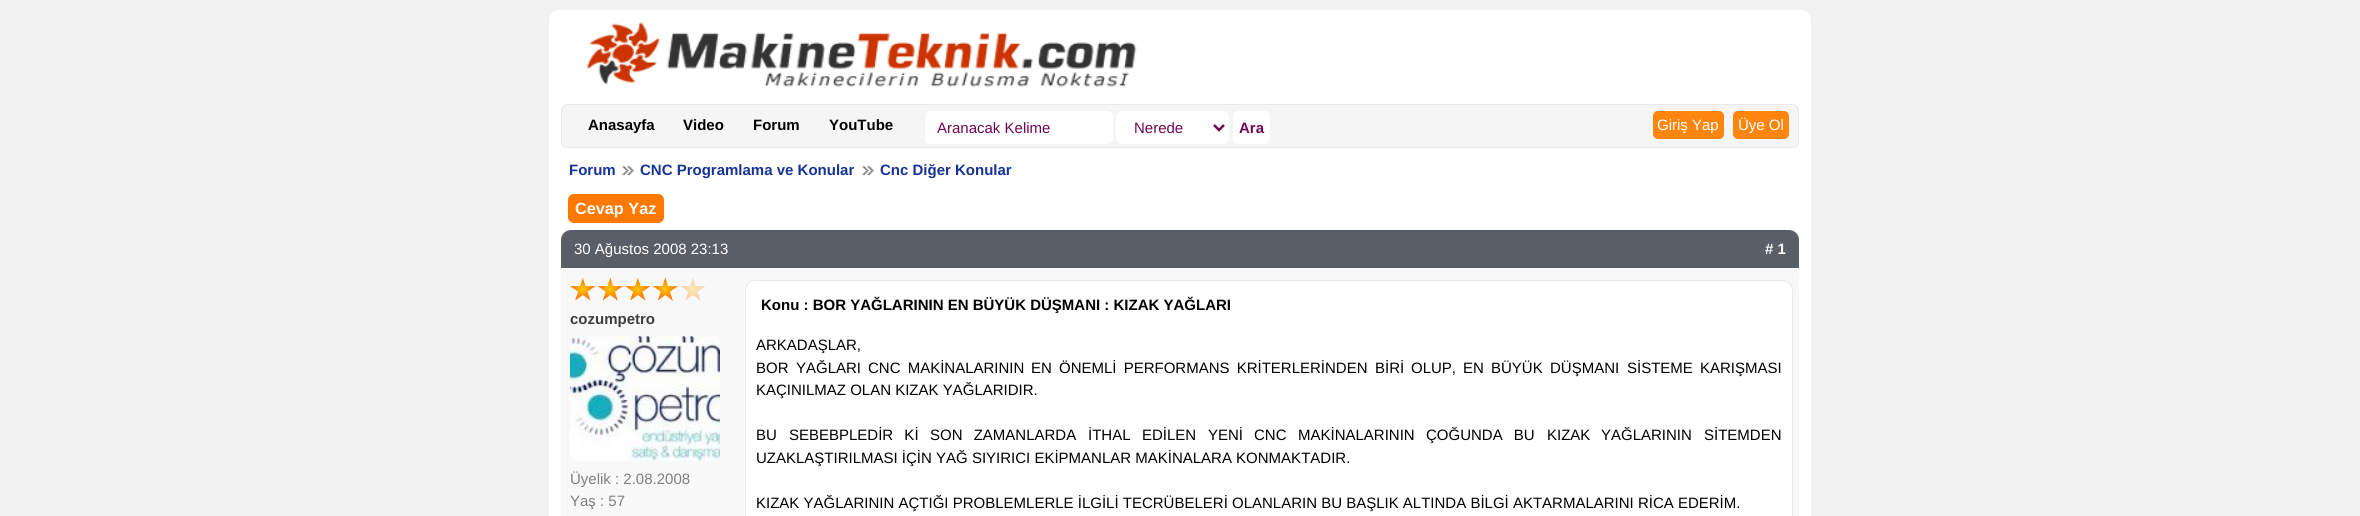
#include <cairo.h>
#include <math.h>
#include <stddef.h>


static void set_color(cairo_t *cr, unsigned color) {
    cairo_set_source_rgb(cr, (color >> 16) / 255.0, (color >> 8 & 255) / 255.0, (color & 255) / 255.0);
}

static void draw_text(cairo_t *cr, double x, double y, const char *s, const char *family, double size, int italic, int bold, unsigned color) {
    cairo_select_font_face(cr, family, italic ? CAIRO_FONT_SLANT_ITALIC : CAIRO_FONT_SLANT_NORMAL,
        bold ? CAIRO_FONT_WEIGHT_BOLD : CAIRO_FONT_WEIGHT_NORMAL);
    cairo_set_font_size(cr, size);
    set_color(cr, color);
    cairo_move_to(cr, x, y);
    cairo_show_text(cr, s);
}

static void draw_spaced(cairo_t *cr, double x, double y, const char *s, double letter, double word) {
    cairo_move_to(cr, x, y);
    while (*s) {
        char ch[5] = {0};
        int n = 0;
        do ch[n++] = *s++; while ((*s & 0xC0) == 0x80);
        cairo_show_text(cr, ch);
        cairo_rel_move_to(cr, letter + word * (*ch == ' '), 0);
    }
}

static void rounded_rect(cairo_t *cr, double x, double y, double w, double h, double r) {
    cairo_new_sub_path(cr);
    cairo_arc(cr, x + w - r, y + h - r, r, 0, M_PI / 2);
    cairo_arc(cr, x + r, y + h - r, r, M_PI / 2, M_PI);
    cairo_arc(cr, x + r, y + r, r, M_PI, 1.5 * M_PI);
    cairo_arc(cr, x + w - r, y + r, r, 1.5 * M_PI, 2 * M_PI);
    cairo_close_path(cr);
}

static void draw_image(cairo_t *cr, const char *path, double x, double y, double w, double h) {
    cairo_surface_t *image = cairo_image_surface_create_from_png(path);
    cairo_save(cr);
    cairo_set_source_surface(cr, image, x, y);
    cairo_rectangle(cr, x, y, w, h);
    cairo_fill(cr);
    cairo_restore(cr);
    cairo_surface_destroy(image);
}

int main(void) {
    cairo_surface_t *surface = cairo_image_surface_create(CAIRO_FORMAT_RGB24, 2360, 516);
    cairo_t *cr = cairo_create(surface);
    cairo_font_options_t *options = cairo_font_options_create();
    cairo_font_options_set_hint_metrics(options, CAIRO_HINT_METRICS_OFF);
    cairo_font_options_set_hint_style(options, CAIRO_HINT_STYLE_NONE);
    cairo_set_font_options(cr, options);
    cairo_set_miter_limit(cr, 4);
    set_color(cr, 0xF2F2F2);
    cairo_paint(cr);
    set_color(cr, 0xFFFFFF);
    rounded_rect(cr, 549, 10, 1262, 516, 10);
    cairo_fill(cr);
    draw_image(cr, "assets/img1.png", 587, 22, 550, 66);
    set_color(cr, 0xF5F5F5);
    rounded_rect(cr, 561.5, 104.5, 1237, 43, 5.5);
    cairo_fill_preserve(cr);
    set_color(cr, 0xE9E9E9);
    cairo_set_line_width(cr, 1);
    cairo_stroke(cr);
    draw_text(cr, 588, 130, "Anasayfa", "Liberation Sans", 15, 0, 1, 0x000000);
    draw_text(cr, 683, 130, "Video", "Liberation Sans", 15, 0, 1, 0x000000);
    draw_text(cr, 753, 130, "Forum", "Liberation Sans", 15, 0, 1, 0x000000);
    draw_text(cr, 829, 130, "YouTube", "Liberation Sans", 15, 0, 1, 0x000000);
    set_color(cr, 0xFFFFFF);
    rounded_rect(cr, 925, 111, 188, 33, 6);
    cairo_fill(cr);
    draw_text(cr, 937, 133, "Aranacak Kelime", "Liberation Sans", 15, 0, 0, 0x6F0655);
    set_color(cr, 0xFFFFFF);
    rounded_rect(cr, 1116, 111, 113, 33, 6);
    cairo_fill(cr);
    cairo_new_path(cr);
    cairo_move_to(cr, 1214, 125);
    cairo_line_to(cr, 1219, 130);
    cairo_line_to(cr, 1224, 125);
    set_color(cr, 0x6F0655);
    cairo_set_line_width(cr, 2.5);
    cairo_stroke(cr);
    draw_text(cr, 1134, 133, "Nerede", "Liberation Sans", 15, 0, 0, 0x6F0655);
    set_color(cr, 0xFFFFFF);
    rounded_rect(cr, 1233, 111, 37, 33, 5);
    cairo_fill(cr);
    draw_text(cr, 1239, 133, "Ara", "Liberation Sans", 15, 0, 1, 0x6F0655);
    set_color(cr, 0xFF860E);
    rounded_rect(cr, 1653, 111, 71, 28, 5);
    cairo_fill(cr);
    draw_text(cr, 1657, 130, "Giriş Yap", "Liberation Sans", 15, 0, 0, 0xFFFFFF);
    set_color(cr, 0xFF860E);
    rounded_rect(cr, 1733, 111, 56, 28, 5);
    cairo_fill(cr);
    draw_text(cr, 1738, 130, "Üye Ol", "Liberation Sans", 15, 0, 0, 0xFFFFFF);
    draw_text(cr, 569, 175, "Forum", "Liberation Sans", 15, 0, 1, 0x173399);
    draw_image(cr, "assets/img2.png", 622, 166, 12, 10);
    draw_text(cr, 640, 175, "CNC Programlama ve Konular", "Liberation Sans", 15, 0, 1, 0x173399);
    draw_image(cr, "assets/img2.png", 862, 166, 12, 10);
    draw_text(cr, 880, 175, "Cnc Diğer Konular", "Liberation Sans", 15, 0, 1, 0x173399);
    set_color(cr, 0xFF7800);
    rounded_rect(cr, 568, 194, 96, 29, 6);
    cairo_fill(cr);
    draw_text(cr, 575, 214, "Cevap Yaz", "Liberation Sans", 16.25, 0, 1, 0xFFFFFF);
    set_color(cr, 0xF8F8F8);
    rounded_rect(cr, 561, 230, 1238, 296, 10);
    cairo_fill(cr);
    set_color(cr, 0x5A5E66);
    cairo_new_path(cr);
    cairo_move_to(cr, 571, 230);
    cairo_line_to(cr, 1789, 230);
    cairo_curve_to(cr, 1794.5, 230, 1799, 234.5, 1799, 240);
    cairo_line_to(cr, 1799, 268);
    cairo_line_to(cr, 561, 268);
    cairo_line_to(cr, 561, 240);
    cairo_curve_to(cr, 561, 234.5, 565.5, 230, 571, 230);
    cairo_close_path(cr);
    cairo_fill(cr);
    draw_text(cr, 574, 254, "30 Ağustos 2008 23:13", "Liberation Sans", 15, 0, 0, 0xFFFFFF);
    draw_text(cr, 1765, 254, "# 1", "Liberation Sans", 15, 0, 1, 0xFFFFFF);
    draw_image(cr, "assets/img3.png", 570, 277, 25, 24);
    draw_image(cr, "assets/img4.png", 598, 277, 25, 24);
    draw_image(cr, "assets/img3.png", 625, 277, 25, 24);
    draw_image(cr, "assets/img4.png", 653, 277, 25, 24);
    draw_image(cr, "assets/img5.png", 680, 278, 25, 23);
    draw_text(cr, 570, 324, "cozumpetro", "Liberation Sans", 15, 0, 1, 0x3E3E3E);
    draw_image(cr, "assets/img6.png", 570, 336, 150, 125);
    draw_text(cr, 570, 484, "Üyelik : 2.08.2008", "Liberation Sans", 15, 0, 0, 0x7F7F7F);
    draw_text(cr, 570, 506, "Yaş : 57", "Liberation Sans", 15, 0, 0, 0x7F7F7F);
    set_color(cr, 0xFFFFFF);
    rounded_rect(cr, 745.5, 280.5, 1047, 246, 9.5);
    cairo_fill_preserve(cr);
    set_color(cr, 0xE9E9E9);
    cairo_set_line_width(cr, 1);
    cairo_stroke(cr);
    draw_text(cr, 761, 310, "Konu : BOR YAĞLARININ EN BÜYÜK DÜŞMANI : KIZAK YAĞLARI", "Liberation Sans", 15, 0, 1, 0x000000);
    draw_text(cr, 756, 350, "ARKADAŞLAR,", "Liberation Sans", 15, 0, 0, 0x000000);
    draw_text(cr, 756, 373, "BOR", "Liberation Sans", 15, 0, 0, 0x000000);
    draw_text(cr, 796, 373, "YAĞLARI", "Liberation Sans", 15, 0, 0, 0x000000);
    draw_spaced(cr, 868, 373, "CNC MAKİNALARININ", 0, 3);
    draw_text(cr, 1031, 373, "EN", "Liberation Sans", 15, 0, 0, 0x000000);
    draw_spaced(cr, 1059, 373, "ÖNEMLİ PERFORMANS KRİTERLERİNDEN", 0, 3);
    draw_text(cr, 1375, 373, "BİRİ", "Liberation Sans", 15, 0, 0, 0x000000);
    draw_text(cr, 1411, 373, "OLUP,", "Liberation Sans", 15, 0, 0, 0x000000);
    draw_text(cr, 1463, 373, "EN", "Liberation Sans", 15, 0, 0, 0x000000);
    draw_text(cr, 1491, 373, "BÜYÜK", "Liberation Sans", 15, 0, 0, 0x000000);
    draw_text(cr, 1550, 373, "DÜŞMANI", "Liberation Sans", 15, 0, 0, 0x000000);
    draw_spaced(cr, 1627, 373, "SİSTEME KARIŞMASI", 0, 3);
    draw_text(cr, 756, 395, "KAÇINILMAZ OLAN KIZAK YAĞLARIDIR.", "Liberation Sans", 15, 0, 0, 0x000000);
    draw_text(cr, 756, 440, "BU", "Liberation Sans", 15, 0, 0, 0x000000);
    draw_spaced(cr, 789, 440, "SEBEBPLEDİR Kİ", 0, 7);
    draw_spaced(cr, 930, 440, "SON ZAMANLARDA", 0, 7);
    draw_text(cr, 1088, 440, "İTHAL", "Liberation Sans", 15, 0, 0, 0x000000);
    draw_text(cr, 1142, 440, "EDİLEN", "Liberation Sans", 15, 0, 0, 0x000000);
    draw_text(cr, 1208, 440, "YENİ", "Liberation Sans", 15, 0, 0, 0x000000);
    draw_text(cr, 1254, 440, "CNC", "Liberation Sans", 15, 0, 0, 0x000000);
    draw_text(cr, 1298, 440, "MAKİNALARININ", "Liberation Sans", 15, 0, 0, 0x000000);
    draw_spaced(cr, 1426, 440, "ÇOĞUNDA BU", 0, 7);
    draw_text(cr, 1547, 440, "KIZAK", "Liberation Sans", 15, 0, 0, 0x000000);
    draw_text(cr, 1601, 440, "YAĞLARININ", "Liberation Sans", 15, 0, 0, 0x000000);
    draw_text(cr, 1704, 440, "SİTEMDEN", "Liberation Sans", 15, 0, 0, 0x000000);
    draw_text(cr, 756, 463, "UZAKLAŞTIRILMASI İÇİN YAĞ SIYIRICI EKİPMANLAR MAKİNALARA KONMAKTADIR.", "Liberation Sans", 15, 0, 0, 0x000000);
    draw_text(cr, 756, 508, "KIZAK YAĞLARININ AÇTIĞI PROBLEMLERLE İLGİLİ TECRÜBELERİ OLANLARIN BU BAŞLIK ALTINDA BİLGİ AKTARMALARINI RİCA EDERİM.", "Liberation Sans", 15, 0, 0, 0x000000);
    cairo_surface_write_to_png(surface, "output.png");
    cairo_font_options_destroy(options);
    cairo_destroy(cr);
    cairo_surface_destroy(surface);
    return 0;
}
